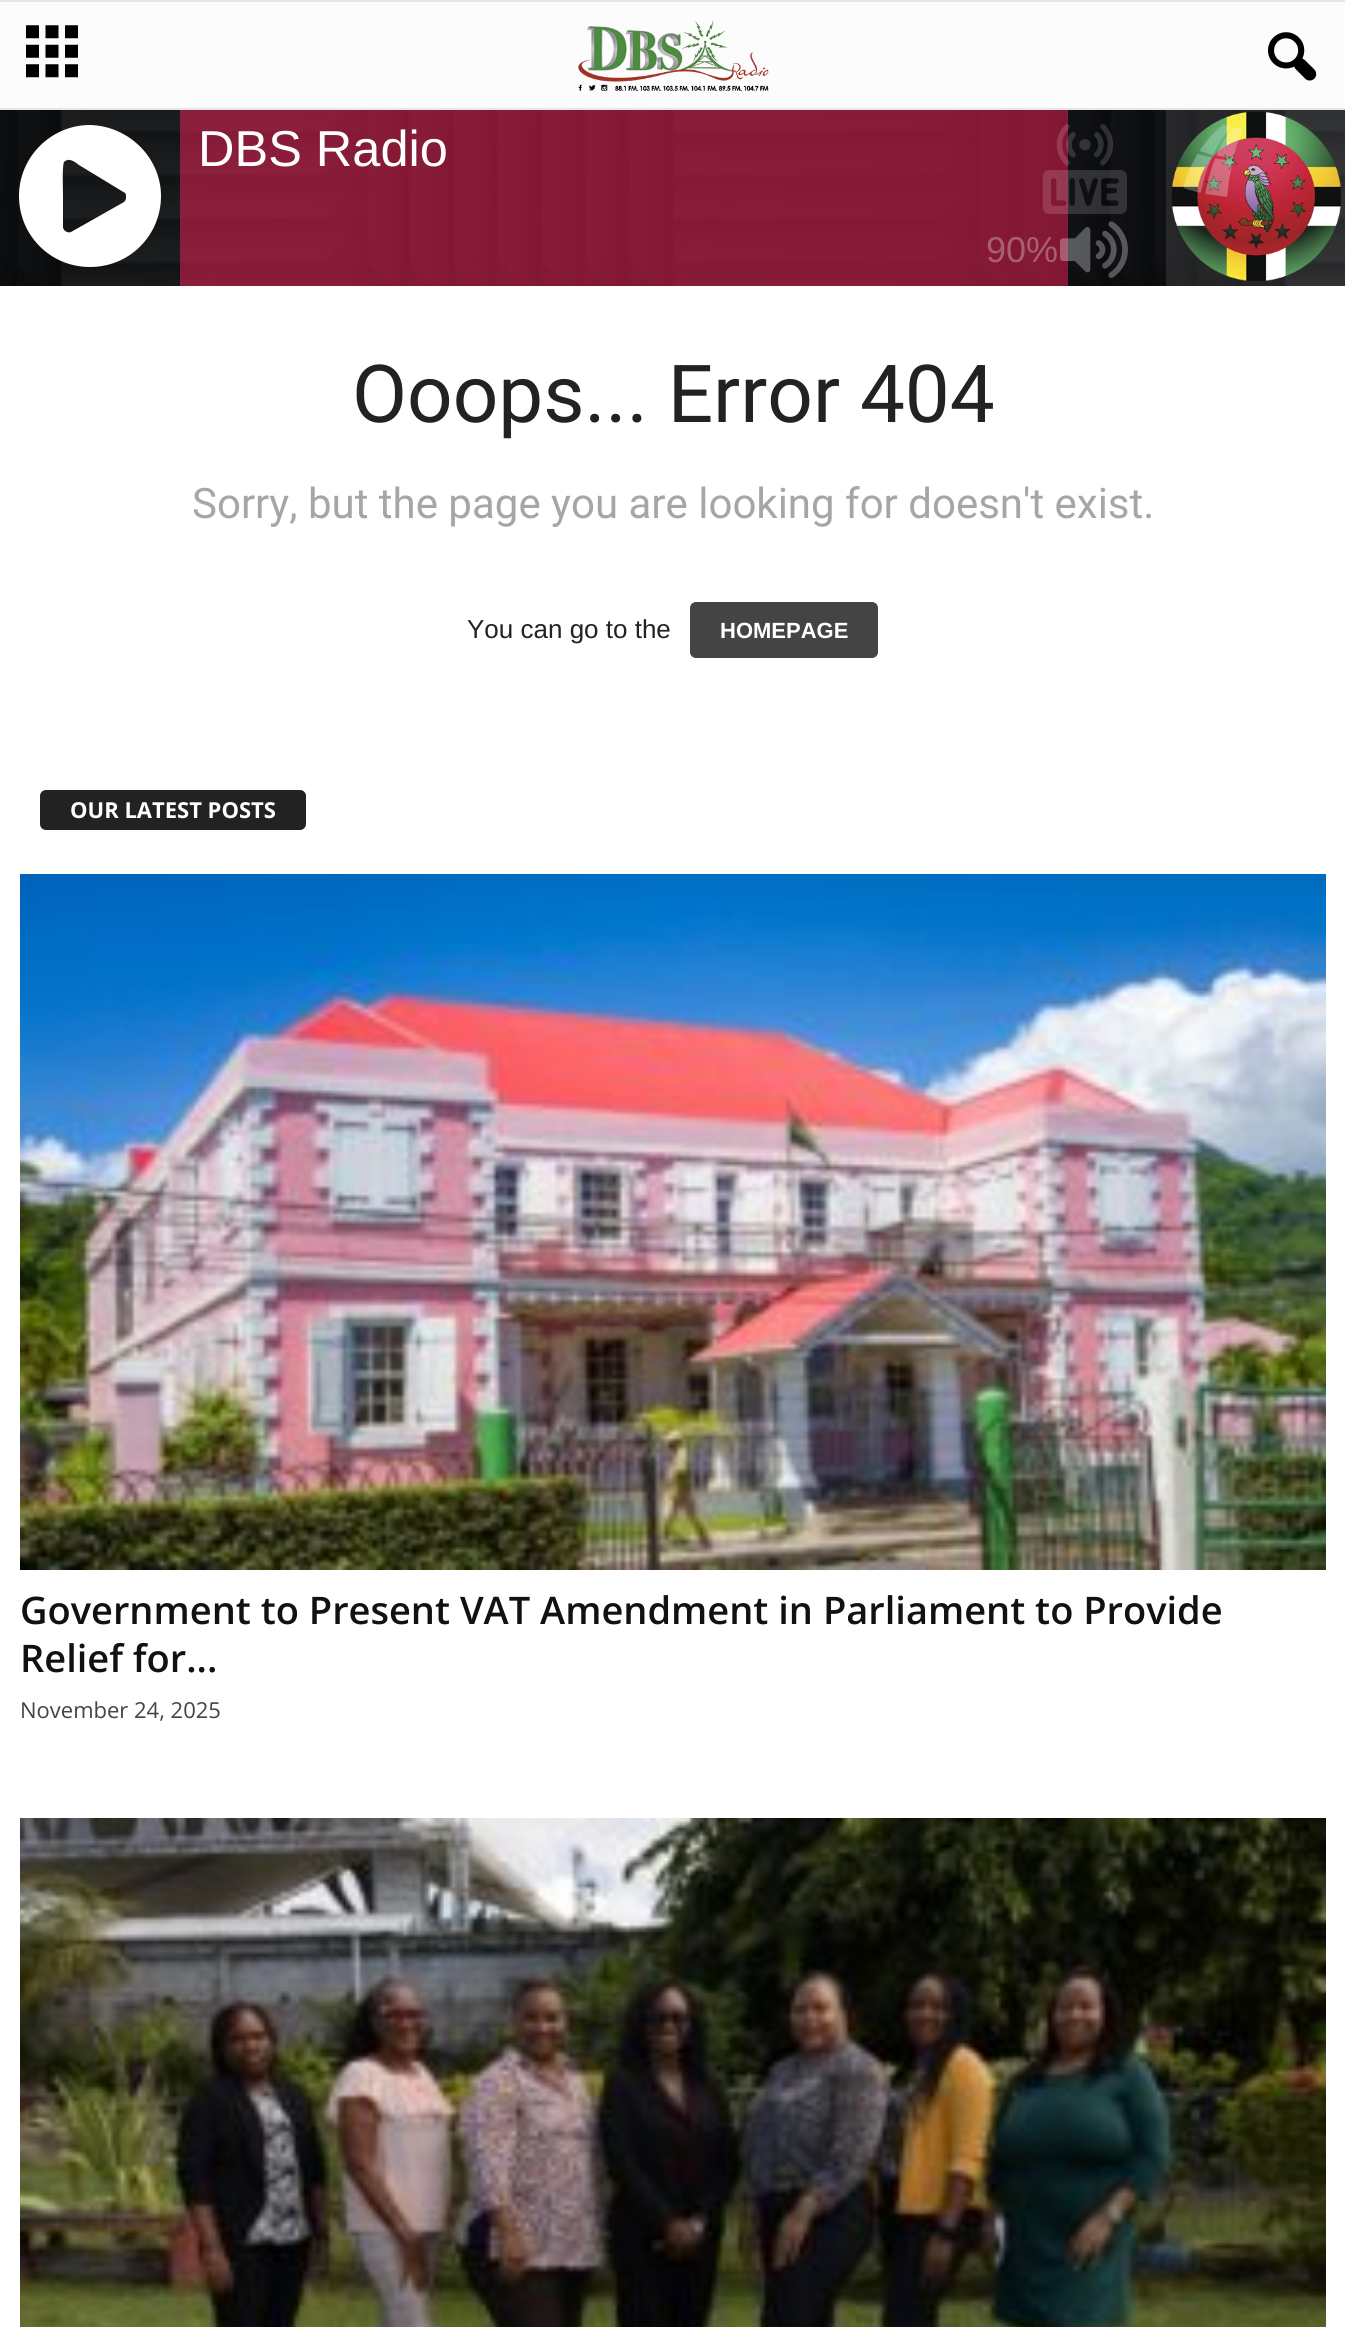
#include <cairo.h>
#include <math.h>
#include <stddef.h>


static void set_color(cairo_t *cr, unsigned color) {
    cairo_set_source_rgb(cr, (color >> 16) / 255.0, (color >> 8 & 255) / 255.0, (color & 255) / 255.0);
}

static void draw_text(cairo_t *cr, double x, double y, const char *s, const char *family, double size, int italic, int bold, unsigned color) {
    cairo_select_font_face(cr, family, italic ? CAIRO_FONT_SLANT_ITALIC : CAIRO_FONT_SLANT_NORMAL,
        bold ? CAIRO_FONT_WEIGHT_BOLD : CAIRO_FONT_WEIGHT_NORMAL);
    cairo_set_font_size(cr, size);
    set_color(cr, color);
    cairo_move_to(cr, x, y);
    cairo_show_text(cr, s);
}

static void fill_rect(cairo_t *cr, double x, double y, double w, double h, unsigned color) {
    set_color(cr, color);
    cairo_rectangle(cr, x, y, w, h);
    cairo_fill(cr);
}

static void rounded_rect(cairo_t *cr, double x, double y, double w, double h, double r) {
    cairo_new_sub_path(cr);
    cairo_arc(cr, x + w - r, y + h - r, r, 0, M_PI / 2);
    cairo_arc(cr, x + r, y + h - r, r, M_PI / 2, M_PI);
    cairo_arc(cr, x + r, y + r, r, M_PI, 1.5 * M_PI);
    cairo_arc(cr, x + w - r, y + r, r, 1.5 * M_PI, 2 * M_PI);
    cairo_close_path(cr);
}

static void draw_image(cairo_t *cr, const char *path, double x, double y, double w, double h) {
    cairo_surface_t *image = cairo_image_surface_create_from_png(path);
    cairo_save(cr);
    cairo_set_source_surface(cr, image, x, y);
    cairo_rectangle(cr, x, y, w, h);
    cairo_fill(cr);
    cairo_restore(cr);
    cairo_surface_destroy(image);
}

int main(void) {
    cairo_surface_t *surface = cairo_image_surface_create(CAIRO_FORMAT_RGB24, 1345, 2327);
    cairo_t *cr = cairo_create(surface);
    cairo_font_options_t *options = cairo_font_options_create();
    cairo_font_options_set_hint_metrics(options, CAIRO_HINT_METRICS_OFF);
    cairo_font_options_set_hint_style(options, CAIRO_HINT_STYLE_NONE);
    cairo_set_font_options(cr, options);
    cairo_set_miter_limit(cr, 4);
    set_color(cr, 0xFFFFFF);
    cairo_paint(cr);
    draw_image(cr, "assets/img1.png", 0, 110, 1345, 176);
    fill_rect(cr, 0, 2, 1345, 106, 0xFCFCFC);
    fill_rect(cr, 0, 0, 1345, 2, 0xE6E6E6);
    fill_rect(cr, 0, 108, 1345, 2, 0xE6E6E6);
    draw_image(cr, "assets/img2.png", 26, 25, 52, 53);
    draw_image(cr, "assets/img3.png", 578, 20, 191, 71);
    draw_image(cr, "assets/img4.png", 1268, 32, 49, 49);
    cairo_set_source_rgba(cr, 0.055, 0.063, 0.082, 0.5);
    cairo_rectangle(cr, 0, 110, 1345, 176);
    cairo_fill(cr);
    set_color(cr, 0xFFFFFF);
    cairo_new_path(cr);
    cairo_move_to(cr, 161, 196);
    cairo_curve_to(cr, 161, 235, 130, 267, 90, 267);
    cairo_curve_to(cr, 50, 267, 19, 235, 19, 196);
    cairo_curve_to(cr, 19, 157, 51, 125, 90, 125);
    cairo_curve_to(cr, 129, 126, 161, 158, 161, 196);
    cairo_close_path(cr);
    cairo_move_to(cr, 63, 196);
    cairo_line_to(cr, 63, 228);
    cairo_line_to(cr, 65, 231);
    cairo_curve_to(cr, 67, 232, 69, 233, 71, 232);
    cairo_line_to(cr, 124, 202);
    cairo_curve_to(cr, 126, 200, 126, 199, 126, 197);
    cairo_curve_to(cr, 126, 195, 126, 194, 125, 193);
    cairo_line_to(cr, 79, 165);
    cairo_curve_to(cr, 75, 162, 69, 157, 64, 162);
    cairo_curve_to(cr, 62, 166, 63, 190, 63, 196);
    cairo_close_path(cr);
    cairo_fill(cr);
    cairo_set_source_rgba(cr, 0.98, 0.133, 0.357, 0.5);
    cairo_rectangle(cr, 180, 110, 888, 176);
    cairo_fill(cr);
    draw_image(cr, "assets/img5.png", 1042, 124, 85, 90);
    cairo_set_source_rgba(cr, 1, 1, 1, 0.1);
    cairo_rectangle(cr, 1166, 110, 179, 176);
    cairo_fill(cr);
    draw_image(cr, "assets/img6.png", 1171, 111, 170, 170);
    draw_text(cr, 198, 166, "DBS Radio", "Liberation Sans", 50.5, 0, 0, 0xFFFFFF);
    draw_text(cr, 986, 262, "90%", "Liberation Sans", 36, 0, 0, 0xA95E73);
    draw_image(cr, "assets/img7.png", 1060, 221, 68, 57);
    draw_text(cr, 352, 422, "Ooops... Error 404", "Roboto", 80, 0, 0, 0x222222);
    draw_text(cr, 192, 518, "Sorry, but the page you are looking for doesn't exist.", "Roboto", 42, 0, 0, 0xA6A6A6);
    draw_text(cr, 467, 638, "You can go to the", "Liberation Sans", 26, 0, 0, 0x222222);
    set_color(cr, 0x444444);
    rounded_rect(cr, 690, 602, 188, 56, 6);
    cairo_fill(cr);
    draw_text(cr, 720, 638, "HOMEPAGE", "Liberation Sans", 22, 0, 1, 0xFFFFFF);
    set_color(cr, 0x222222);
    rounded_rect(cr, 40, 790, 266, 40, 6);
    cairo_fill(cr);
    draw_text(cr, 70, 818, "OUR LATEST POSTS", "Open Sans", 22, 0, 1, 0xFFFFFF);
    draw_image(cr, "assets/img8.png", 20, 874, 1306, 696);
    draw_text(cr, 20, 1624, "Government to Present VAT Amendment in Parliament to Provide", "Open Sans SemiBold", 38, 0, 0, 0x111111);
    draw_text(cr, 20, 1672, "Relief for...", "Open Sans SemiBold", 38, 0, 0, 0x111111);
    draw_text(cr, 20, 1718, "November 24, 2025", "Open Sans", 22, 0, 0, 0x444444);
    draw_image(cr, "assets/img9.png", 20, 1818, 1306, 509);
    cairo_surface_write_to_png(surface, "output.png");
    cairo_font_options_destroy(options);
    cairo_destroy(cr);
    cairo_surface_destroy(surface);
    return 0;
}
